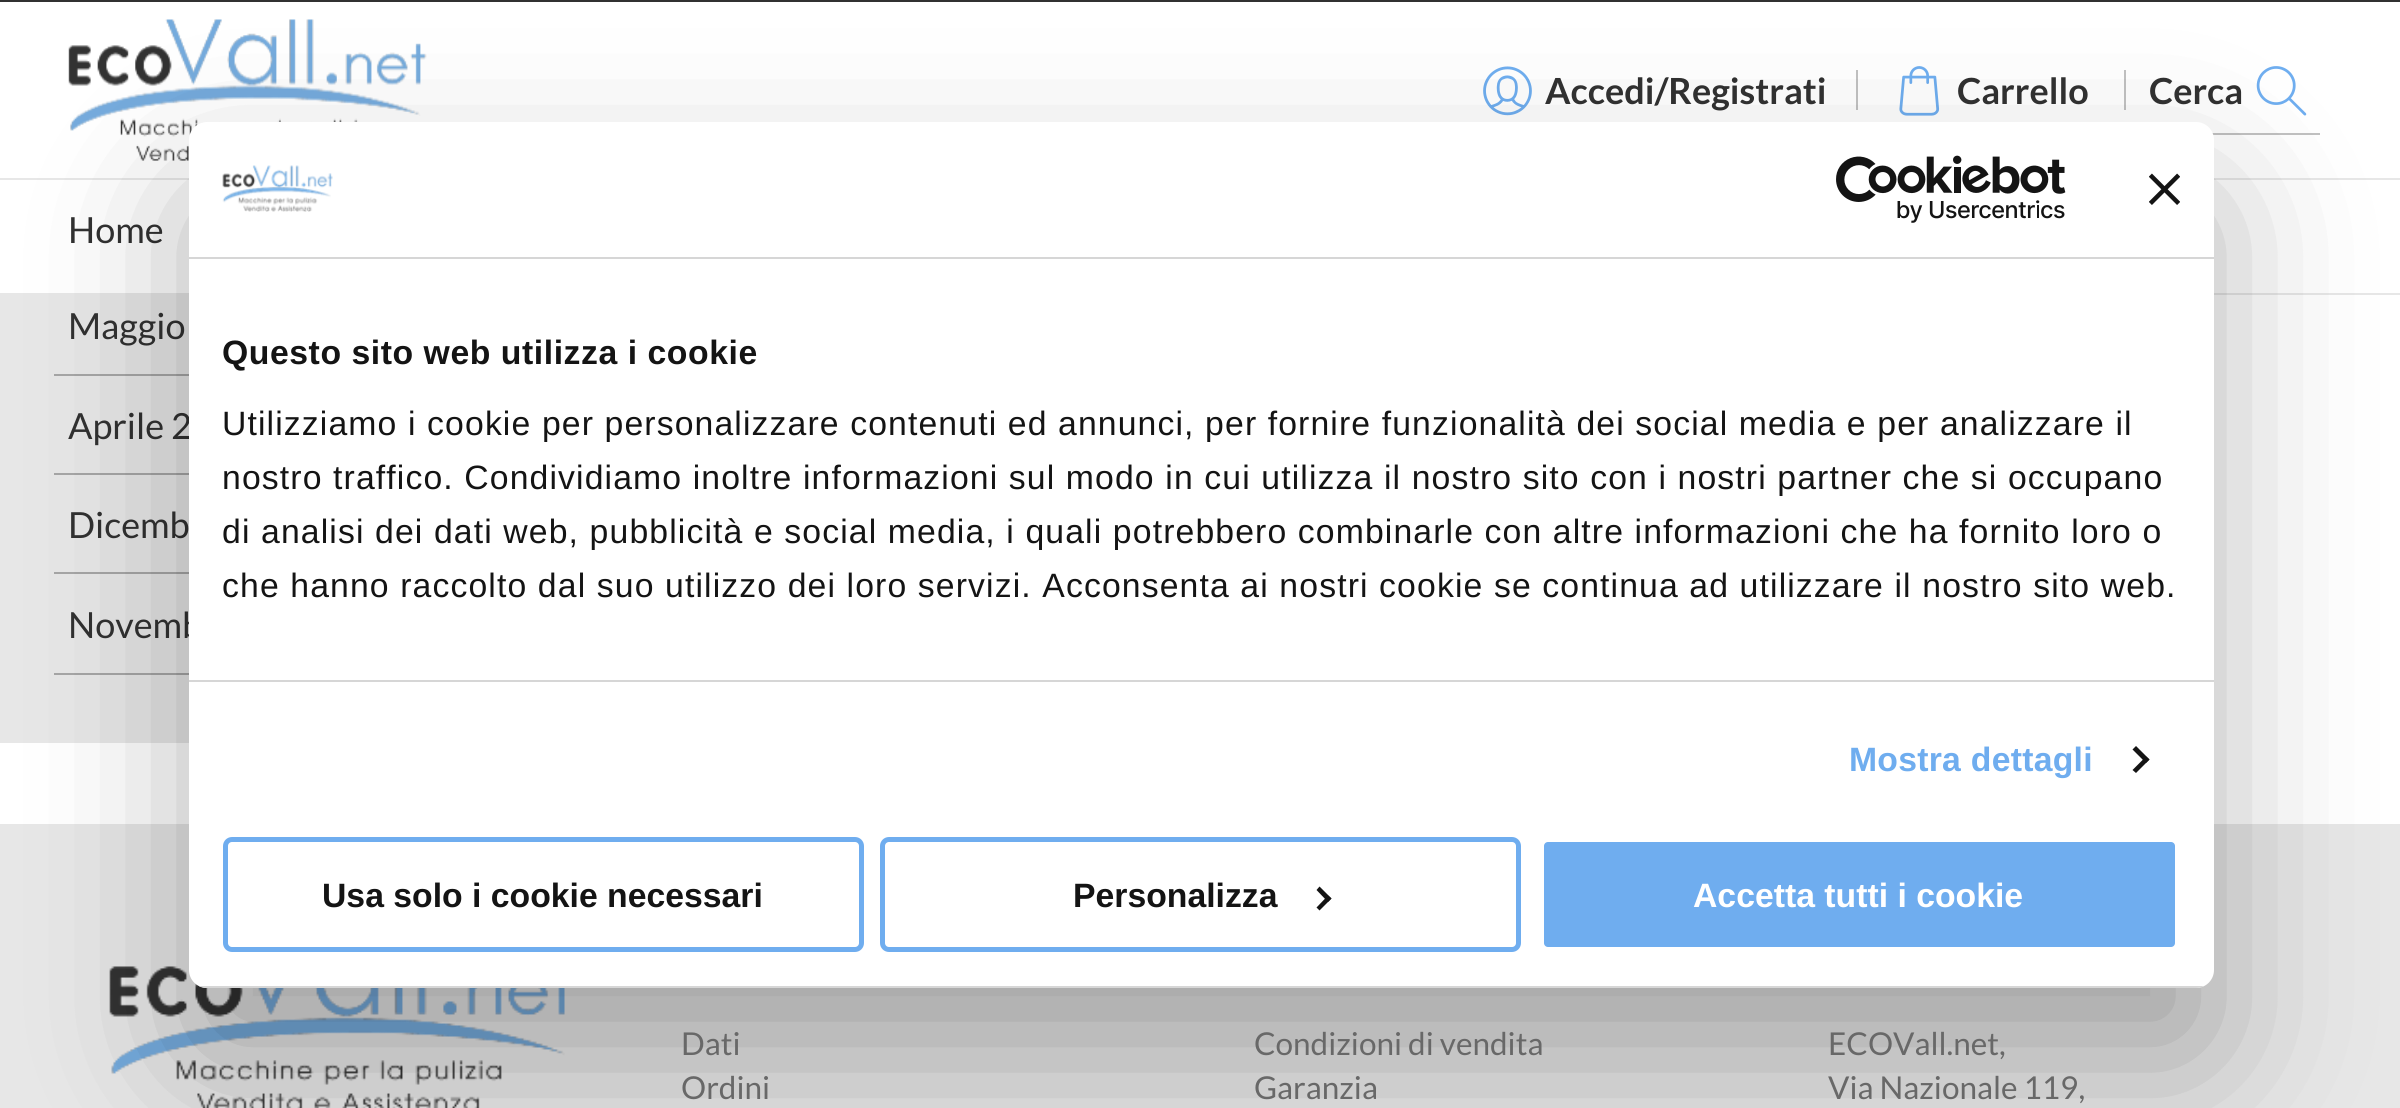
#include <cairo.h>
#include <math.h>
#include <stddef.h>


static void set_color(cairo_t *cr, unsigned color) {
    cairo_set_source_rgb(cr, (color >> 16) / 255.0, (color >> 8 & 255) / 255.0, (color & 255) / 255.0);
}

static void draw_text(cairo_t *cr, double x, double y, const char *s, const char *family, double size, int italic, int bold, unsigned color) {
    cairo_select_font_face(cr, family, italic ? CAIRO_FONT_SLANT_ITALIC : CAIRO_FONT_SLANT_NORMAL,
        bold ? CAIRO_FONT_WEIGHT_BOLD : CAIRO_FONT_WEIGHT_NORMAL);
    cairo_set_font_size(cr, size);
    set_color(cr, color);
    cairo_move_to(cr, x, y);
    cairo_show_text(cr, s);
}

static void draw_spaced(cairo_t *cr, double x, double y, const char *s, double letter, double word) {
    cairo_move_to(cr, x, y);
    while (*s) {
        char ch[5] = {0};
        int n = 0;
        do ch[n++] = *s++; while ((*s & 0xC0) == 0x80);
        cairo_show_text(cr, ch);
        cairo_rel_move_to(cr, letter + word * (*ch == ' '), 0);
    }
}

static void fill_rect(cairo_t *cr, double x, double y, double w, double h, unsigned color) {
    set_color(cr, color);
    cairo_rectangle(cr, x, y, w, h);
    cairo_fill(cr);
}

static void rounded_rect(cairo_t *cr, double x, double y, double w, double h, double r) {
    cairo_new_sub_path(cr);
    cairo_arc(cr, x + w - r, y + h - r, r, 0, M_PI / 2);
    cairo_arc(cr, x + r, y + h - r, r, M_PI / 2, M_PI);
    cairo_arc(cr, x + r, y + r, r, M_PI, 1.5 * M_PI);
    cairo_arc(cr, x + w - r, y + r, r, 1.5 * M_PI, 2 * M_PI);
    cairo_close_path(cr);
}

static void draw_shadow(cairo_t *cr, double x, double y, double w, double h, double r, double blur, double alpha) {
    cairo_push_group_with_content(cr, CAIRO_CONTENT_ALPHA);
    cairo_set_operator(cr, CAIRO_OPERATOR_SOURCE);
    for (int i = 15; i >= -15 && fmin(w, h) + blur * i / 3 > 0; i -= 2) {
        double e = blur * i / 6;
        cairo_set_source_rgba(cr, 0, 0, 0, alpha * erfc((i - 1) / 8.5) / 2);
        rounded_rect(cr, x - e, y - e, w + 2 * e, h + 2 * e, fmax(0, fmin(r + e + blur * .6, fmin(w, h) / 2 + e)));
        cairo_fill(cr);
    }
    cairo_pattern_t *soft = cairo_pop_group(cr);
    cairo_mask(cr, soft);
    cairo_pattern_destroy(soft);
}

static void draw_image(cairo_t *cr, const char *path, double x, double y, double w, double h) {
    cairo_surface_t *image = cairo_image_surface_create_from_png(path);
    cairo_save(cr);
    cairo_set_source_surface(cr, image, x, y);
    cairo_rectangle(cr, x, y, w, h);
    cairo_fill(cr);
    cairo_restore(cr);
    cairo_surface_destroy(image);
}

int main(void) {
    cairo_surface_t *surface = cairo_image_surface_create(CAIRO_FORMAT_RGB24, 2400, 1108);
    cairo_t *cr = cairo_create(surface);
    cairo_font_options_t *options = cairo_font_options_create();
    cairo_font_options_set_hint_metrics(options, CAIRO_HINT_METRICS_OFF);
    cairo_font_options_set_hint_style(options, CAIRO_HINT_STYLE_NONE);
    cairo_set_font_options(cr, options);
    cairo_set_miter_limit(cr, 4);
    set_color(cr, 0xFFFFFF);
    cairo_paint(cr);
    fill_rect(cr, 0, 0, 2400, 2, 0x313131);
    fill_rect(cr, 0, 178, 2400, 2, 0xE7E7E7);
    draw_image(cr, "assets/img1.png", 68, 19, 359, 142);
    draw_image(cr, "assets/img2.png", 1483, 66, 49, 50);
    draw_text(cr, 1545, 104, "Accedi/Registrati", "Lato", 36, 0, 1, 0x313131);
    fill_rect(cr, 1856, 70, 2, 40, 0xC1C1C1);
    draw_image(cr, "assets/img3.png", 1899, 66, 41, 50);
    draw_text(cr, 1957, 104, "Carrello", "Lato", 36, 0, 1, 0x313131);
    fill_rect(cr, 2124, 70, 2, 40, 0xC1C1C1);
    draw_text(cr, 2149, 104, "Cerca", "Lato", 36, 0, 1, 0x313131);
    draw_image(cr, "assets/img4.png", 2256, 66, 51, 50);
    fill_rect(cr, 2212, 133, 108, 2, 0xC1C1C1);
    fill_rect(cr, 0, 293, 2400, 2, 0xE7E7E7);
    draw_text(cr, 68, 243, "Home", "Lato", 36, 0, 0, 0x313131);
    fill_rect(cr, 0, 295, 189, 448, 0xE7E7E7);
    fill_rect(cr, 54, 374, 135, 2, 0xA6A6A6);
    draw_text(cr, 68, 339, "Maggio", "Lato", 36, 0, 0, 0x313131);
    fill_rect(cr, 54, 473, 135, 2, 0xA6A6A6);
    draw_text(cr, 68, 439, "Aprile 2", "Lato", 36, 0, 0, 0x313131);
    fill_rect(cr, 54, 572, 135, 2, 0xA6A6A6);
    draw_text(cr, 68, 538, "Dicemb", "Lato", 36, 0, 0, 0x313131);
    fill_rect(cr, 54, 673, 135, 2, 0xA6A6A6);
    draw_text(cr, 68, 638, "Novemb", "Lato", 36, 0, 0, 0x313131);
    fill_rect(cr, 0, 824, 2400, 284, 0xE7E7E7);
    draw_image(cr, "assets/img8.png", 109, 966, 456, 142);
    set_color(cr, 0x000000);
    draw_shadow(cr, 189, 194, 2025, 866, 18, 76.5, 0.3);
    set_color(cr, 0xFFFFFF);
    rounded_rect(cr, 189, 122, 2025, 866, 18);
    cairo_fill(cr);
    fill_rect(cr, 189, 257, 2025, 2, 0xD6D6D6);
    draw_image(cr, "assets/img5.png", 222, 165, 111, 47);
    draw_image(cr, "assets/img6.png", 1836, 155, 230, 68);
    draw_image(cr, "assets/img7.png", 2149, 173, 31, 32);
    fill_rect(cr, 189, 680, 2025, 2, 0xD6D6D6);
    cairo_select_font_face(cr, "Liberation Sans", CAIRO_FONT_SLANT_NORMAL, CAIRO_FONT_WEIGHT_BOLD);
    cairo_set_font_size(cr, 33.75);
    set_color(cr, 0x141414);
    draw_spaced(cr, 222, 364, "Questo sito web utilizza i cookie", 0.55, 0);
    cairo_select_font_face(cr, "Liberation Sans", CAIRO_FONT_SLANT_NORMAL, CAIRO_FONT_WEIGHT_NORMAL);
    draw_spaced(cr, 222, 435, "Utilizziamo i cookie per personalizzare contenuti ed annunci, per fornire funzionalità dei social media e per analizzare il", 1.12, 0);
    draw_spaced(cr, 222, 489, "nostro traffico. Condividiamo inoltre informazioni sul modo in cui utilizza il nostro sito con i nostri partner che si occupano", 1.12, 0);
    draw_spaced(cr, 222, 543, "di analisi dei dati web, pubblicità e social media, i quali potrebbero combinarle con altre informazioni che ha fornito loro o", 1.12, 0);
    draw_spaced(cr, 222, 597, "che hanno raccolto dal suo utilizzo dei loro servizi. Acconsenta ai nostri cookie se continua ad utilizzare il nostro sito web.", 1.12, 0);
    cairo_select_font_face(cr, "Liberation Sans", CAIRO_FONT_SLANT_NORMAL, CAIRO_FONT_WEIGHT_BOLD);
    set_color(cr, 0x6FADEF);
    draw_spaced(cr, 1849, 771, "Mostra dettagli", 0.25, 0);
    set_color(cr, 0x141414);
    cairo_new_path(cr);
    cairo_move_to(cr, 2136, 746);
    cairo_line_to(cr, 2149.5, 759.5);
    cairo_line_to(cr, 2146, 763);
    cairo_line_to(cr, 2132.5, 749.5);
    cairo_close_path(cr);
    cairo_fill(cr);
    cairo_new_path(cr);
    cairo_move_to(cr, 2146, 756.5);
    cairo_line_to(cr, 2149.5, 759.5);
    cairo_line_to(cr, 2136, 773);
    cairo_line_to(cr, 2132.5, 770);
    cairo_close_path(cr);
    cairo_fill(cr);
    cairo_save(cr);
    rounded_rect(cr, 189, 122, 2025, 866, 18);
    cairo_clip(cr);
    fill_rect(cr, 199, 986, 2005, 2, 0xD6D6D6);
    cairo_restore(cr);
    rounded_rect(cr, 225.5, 839.5, 636, 110, 6.5);
    set_color(cr, 0x6FADEF);
    cairo_set_line_width(cr, 5);
    cairo_stroke(cr);
    draw_text(cr, 322, 907, "Usa solo i cookie necessari", "Liberation Sans", 33.75, 0, 1, 0x141414);
    rounded_rect(cr, 882.5, 839.5, 636, 110, 6.5);
    set_color(cr, 0x6FADEF);
    cairo_stroke(cr);
    draw_text(cr, 1073, 907, "Personalizza", "Liberation Sans", 33.75, 0, 1, 0x141414);
    cairo_new_path(cr);
    cairo_move_to(cr, 1319.5, 886.5);
    cairo_line_to(cr, 1331.5, 898.5);
    cairo_line_to(cr, 1328, 902);
    cairo_line_to(cr, 1316.5, 890);
    cairo_close_path(cr);
    cairo_fill(cr);
    cairo_new_path(cr);
    cairo_move_to(cr, 1328, 895.5);
    cairo_line_to(cr, 1331.5, 898.5);
    cairo_line_to(cr, 1319.5, 910.5);
    cairo_line_to(cr, 1316.5, 907.5);
    cairo_close_path(cr);
    cairo_fill(cr);
    set_color(cr, 0x6FADEF);
    rounded_rect(cr, 1541.5, 839.5, 636, 110, 6.5);
    cairo_fill_preserve(cr);
    set_color(cr, 0xFFFFFF);
    cairo_stroke(cr);
    draw_text(cr, 1693, 907, "Accetta tutti i cookie", "Liberation Sans", 33.75, 0, 1, 0xFFFFFF);
    draw_text(cr, 681, 1055, "Dati", "Lato", 31.5, 0, 0, 0x686868);
    draw_text(cr, 681, 1099, "Ordini", "Lato", 31.5, 0, 0, 0x686868);
    draw_text(cr, 1254, 1055, "Condizioni di vendita", "Lato", 31.5, 0, 0, 0x686868);
    draw_text(cr, 1254, 1099, "Garanzia", "Lato", 31.5, 0, 0, 0x686868);
    draw_text(cr, 1828, 1055, "ECOVall.net,", "Lato", 31.5, 0, 0, 0x686868);
    draw_text(cr, 1828, 1099, "Via Nazionale 119,", "Lato", 31.5, 0, 0, 0x686868);
    cairo_surface_write_to_png(surface, "output.png");
    cairo_font_options_destroy(options);
    cairo_destroy(cr);
    cairo_surface_destroy(surface);
    return 0;
}
